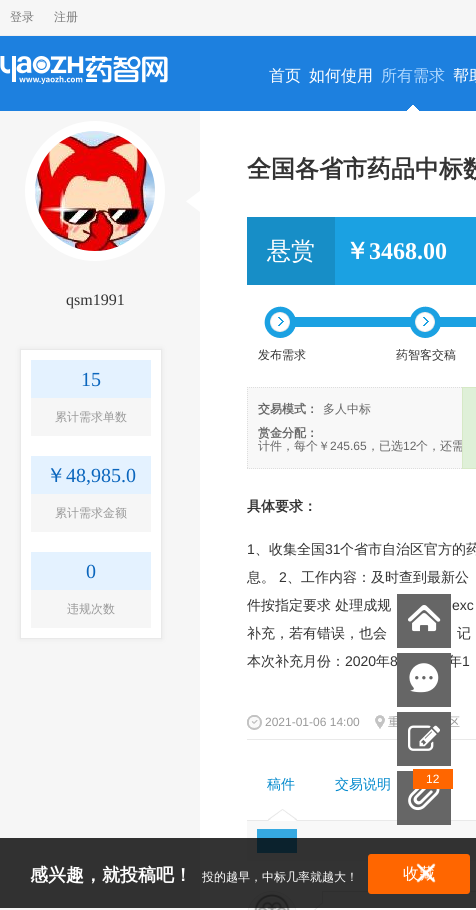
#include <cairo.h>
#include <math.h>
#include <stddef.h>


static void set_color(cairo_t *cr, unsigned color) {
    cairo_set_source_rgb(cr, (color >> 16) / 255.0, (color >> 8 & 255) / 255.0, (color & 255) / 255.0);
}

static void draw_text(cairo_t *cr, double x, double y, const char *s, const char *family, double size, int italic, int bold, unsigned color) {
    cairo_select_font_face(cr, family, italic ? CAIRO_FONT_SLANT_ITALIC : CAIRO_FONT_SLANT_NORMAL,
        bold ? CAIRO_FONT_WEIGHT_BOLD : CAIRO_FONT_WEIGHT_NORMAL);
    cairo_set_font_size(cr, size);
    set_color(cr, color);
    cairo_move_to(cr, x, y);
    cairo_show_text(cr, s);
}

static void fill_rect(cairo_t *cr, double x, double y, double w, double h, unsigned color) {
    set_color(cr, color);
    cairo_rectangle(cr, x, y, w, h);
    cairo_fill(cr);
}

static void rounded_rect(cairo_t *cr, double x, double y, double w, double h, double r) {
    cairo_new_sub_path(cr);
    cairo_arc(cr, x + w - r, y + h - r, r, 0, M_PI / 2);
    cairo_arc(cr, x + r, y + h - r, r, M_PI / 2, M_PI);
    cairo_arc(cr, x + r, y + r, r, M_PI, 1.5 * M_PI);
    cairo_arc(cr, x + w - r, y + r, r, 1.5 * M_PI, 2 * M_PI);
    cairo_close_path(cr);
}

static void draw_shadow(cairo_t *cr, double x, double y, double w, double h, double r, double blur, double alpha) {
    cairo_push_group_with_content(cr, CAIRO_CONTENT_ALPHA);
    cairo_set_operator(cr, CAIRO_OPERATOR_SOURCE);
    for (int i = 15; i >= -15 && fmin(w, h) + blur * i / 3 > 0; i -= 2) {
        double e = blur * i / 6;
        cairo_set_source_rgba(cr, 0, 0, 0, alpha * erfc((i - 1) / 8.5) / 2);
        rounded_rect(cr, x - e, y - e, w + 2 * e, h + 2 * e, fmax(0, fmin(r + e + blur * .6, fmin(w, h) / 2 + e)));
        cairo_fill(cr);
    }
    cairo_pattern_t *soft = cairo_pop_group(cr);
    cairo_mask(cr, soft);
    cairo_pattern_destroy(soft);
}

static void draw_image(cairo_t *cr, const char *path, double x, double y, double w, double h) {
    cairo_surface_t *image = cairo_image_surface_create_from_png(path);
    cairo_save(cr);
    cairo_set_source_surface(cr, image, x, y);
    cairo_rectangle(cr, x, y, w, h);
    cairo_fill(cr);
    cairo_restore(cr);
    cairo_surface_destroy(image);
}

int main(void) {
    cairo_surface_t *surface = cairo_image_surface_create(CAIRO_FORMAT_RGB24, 476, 910);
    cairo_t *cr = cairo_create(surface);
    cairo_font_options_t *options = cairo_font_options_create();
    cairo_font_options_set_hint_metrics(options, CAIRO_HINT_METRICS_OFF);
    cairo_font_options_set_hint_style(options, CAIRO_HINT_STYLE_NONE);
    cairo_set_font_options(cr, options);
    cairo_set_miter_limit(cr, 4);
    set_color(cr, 0xF6F6F6);
    cairo_paint(cr);
    fill_rect(cr, 0, 35, 476, 1, 0xF0EEEE);
    draw_text(cr, 10, 21, "登录", "WenQuanYi Zen Hei Medium", 12, 0, 0, 0x7C7C7C);
    draw_text(cr, 54, 21, "注册", "WenQuanYi Zen Hei Medium", 12, 0, 0, 0x7C7C7C);
    fill_rect(cr, 0, 36, 476, 75, 0x1D80DF);
    draw_image(cr, "assets/img1.png", 0, 56, 168, 28);
    draw_text(cr, 269, 81, "首页", "WenQuanYi Zen Hei Medium", 16, 0, 0, 0xFFFFFF);
    draw_text(cr, 309, 81, "如何使用", "WenQuanYi Zen Hei Medium", 16, 0, 0, 0xFFFFFF);
    draw_image(cr, "assets/img2.png", 407, 105, 12, 6);
    draw_text(cr, 381, 81, "所有需求", "WenQuanYi Zen Hei Medium", 16, 0, 0, 0xAFD8FF);
    draw_text(cr, 453, 81, "帮助", "WenQuanYi Zen Hei Medium", 16, 0, 0, 0xFFFFFF);
    cairo_new_path(cr);
    cairo_arc(cr, 95, 191, 65, 0, 2 * M_PI);
    cairo_set_line_width(cr, 10);
    cairo_stroke(cr);
    draw_image(cr, "assets/img3.png", 35, 131, 120, 120);
    draw_image(cr, "assets/img4.png", 186, 190, 14, 22);
    draw_text(cr, 66, 305, "qsm1991", "Liberation Serif", 16, 0, 0, 0x333333);
    set_color(cr, 0xE6E6E6);
    draw_shadow(cr, 20, 349, 142, 290, 0, 2.5, 1);
    set_color(cr, 0xFFFFFF);
    cairo_rectangle(cr, 20.5, 349.5, 141, 289);
    cairo_fill_preserve(cr);
    set_color(cr, 0xE9E9E9);
    cairo_set_line_width(cr, 1);
    cairo_stroke(cr);
    fill_rect(cr, 31, 360, 120, 38, 0xE4F2FF);
    draw_text(cr, 81, 386, "15", "Liberation Serif", 20, 0, 0, 0x0B66BD);
    fill_rect(cr, 31, 398, 120, 38, 0xF6F6F6);
    draw_text(cr, 55, 421, "累计需求单数", "WenQuanYi Zen Hei Medium", 12, 0, 0, 0x999999);
    fill_rect(cr, 31, 456, 120, 38, 0xE4F2FF);
    draw_text(cr, 46, 482, "￥", "WenQuanYi Zen Hei Medium", 20, 0, 0, 0x0B66BD);
    draw_text(cr, 66, 482, "48,985.0", "Liberation Serif", 20, 0, 0, 0x0B66BD);
    fill_rect(cr, 31, 494, 120, 38, 0xF6F6F6);
    draw_text(cr, 55, 517, "累计需求金额", "WenQuanYi Zen Hei Medium", 12, 0, 0, 0x999999);
    fill_rect(cr, 31, 552, 120, 38, 0xE4F2FF);
    draw_text(cr, 86, 578, "0", "Liberation Serif", 20, 0, 0, 0x0B66BD);
    fill_rect(cr, 31, 590, 120, 38, 0xF6F6F6);
    draw_text(cr, 67, 613, "违规次数", "WenQuanYi Zen Hei Medium", 12, 0, 0, 0x999999);
    fill_rect(cr, 200, 111, 276, 799, 0xFFFFFF);
    draw_text(cr, 247, 177, "全国各省市药品中标数", "WenQuanYi Zen Hei", 24, 0, 1, 0x333333);
    fill_rect(cr, 335, 217, 141, 68, 0x1BA1E2);
    fill_rect(cr, 247, 217, 88, 68, 0x178EC7);
    draw_text(cr, 267, 259, "悬赏", "WenQuanYi Zen Hei Medium", 24, 0, 0, 0xFFFFFF);
    draw_text(cr, 345, 259, "￥", "WenQuanYi Zen Hei", 24, 0, 1, 0xFFFFFF);
    draw_text(cr, 369, 259, "3468.00", "Liberation Serif", 24, 0, 1, 0xFFFFFF);
    fill_rect(cr, 295, 317, 116, 10, 0x1BA1E2);
    draw_image(cr, "assets/img5.png", 264, 306, 32, 32);
    draw_text(cr, 258, 359, "发布需求", "WenQuanYi Zen Hei Medium", 12, 0, 0, 0x333333);
    fill_rect(cr, 440, 317, 36, 10, 0x1BA1E2);
    draw_image(cr, "assets/img6.png", 410, 306, 31, 32);
    draw_text(cr, 396, 359, "药智客交稿", "WenQuanYi Zen Hei Medium", 12, 0, 0, 0x333333);
    fill_rect(cr, 247, 387, 215, 82, 0xF8F8F8);
    cairo_new_path(cr);
    cairo_move_to(cr, 247, 387.5);
    cairo_line_to(cr, 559, 387.5);
    set_color(cr, 0xDDDDDD);
    cairo_set_dash(cr, (double[]){1, 1}, 2, 0);
    cairo_stroke(cr);
    cairo_new_path(cr);
    cairo_move_to(cr, 247, 468.5);
    cairo_line_to(cr, 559, 468.5);
    cairo_stroke(cr);
    cairo_new_path(cr);
    cairo_move_to(cr, 247.5, 387);
    cairo_line_to(cr, 247.5, 469);
    cairo_stroke(cr);
    draw_text(cr, 258, 413, "交易模式：", "WenQuanYi Zen Hei", 12, 0, 1, 0x666666);
    draw_text(cr, 323, 413, "多人中标", "WenQuanYi Zen Hei Medium", 12, 0, 0, 0x666666);
    draw_text(cr, 258, 437, "赏金分配：", "WenQuanYi Zen Hei", 12, 0, 1, 0x666666);
    draw_text(cr, 258, 450, "计件，每个￥", "WenQuanYi Zen Hei Medium", 12, 0, 0, 0x666666);
    draw_text(cr, 330, 450, "245.65", "Liberation Sans", 12, 0, 0, 0x666666);
    draw_text(cr, 367, 450, "，已选", "WenQuanYi Zen Hei Medium", 12, 0, 0, 0x666666);
    draw_text(cr, 403, 450, "12", "Liberation Sans", 12, 0, 0, 0x666666);
    draw_text(cr, 416, 450, "个，还需", "WenQuanYi Zen Hei Medium", 12, 0, 0, 0x666666);
    set_color(cr, 0xDFF0D8);
    cairo_rectangle(cr, 462.5, 387.5, 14, 81);
    cairo_fill_preserve(cr);
    set_color(cr, 0xD6E9C6);
    cairo_set_dash(cr, NULL, 0, 0);
    cairo_stroke(cr);
    draw_text(cr, 247, 511, "具体要求：", "WenQuanYi Zen Hei", 14, 0, 1, 0x333333);
    draw_text(cr, 247, 554, "1", "Liberation Sans", 14, 0, 0, 0x333333);
    draw_text(cr, 255, 554, "、收集全国", "WenQuanYi Zen Hei Medium", 14, 0, 0, 0x333333);
    draw_text(cr, 325, 554, "31", "Liberation Sans", 14, 0, 0, 0x333333);
    draw_text(cr, 340, 554, "个省市自治区官方的药", "WenQuanYi Zen Hei Medium", 14, 0, 0, 0x333333);
    draw_text(cr, 247, 582, "息。", "WenQuanYi Zen Hei Medium", 14, 0, 0, 0x333333);
    draw_text(cr, 279, 582, "2", "Liberation Sans", 14, 0, 0, 0x333333);
    draw_text(cr, 287, 582, "、工作内容：及时查到最新公", "WenQuanYi Zen Hei Medium", 14, 0, 0, 0x333333);
    draw_text(cr, 247, 610, "件按指定要求 处理成规", "WenQuanYi Zen Hei Medium", 14, 0, 0, 0x333333);
    draw_text(cr, 452, 610, "exc", "Liberation Sans", 14, 0, 0, 0x333333);
    draw_text(cr, 247, 638, "补充，若有错误，也会", "WenQuanYi Zen Hei Medium", 14, 0, 0, 0x333333);
    draw_text(cr, 457, 638, "记", "WenQuanYi Zen Hei Medium", 14, 0, 0, 0x333333);
    draw_text(cr, 247, 666, "本次补充月份：", "WenQuanYi Zen Hei Medium", 14, 0, 0, 0x333333);
    draw_text(cr, 345, 666, "2020", "Liberation Sans", 14, 0, 0, 0x333333);
    draw_text(cr, 376, 666, "年", "WenQuanYi Zen Hei Medium", 14, 0, 0, 0x333333);
    draw_text(cr, 390, 666, "8", "Liberation Sans", 14, 0, 0, 0x333333);
    draw_text(cr, 448, 666, "年", "WenQuanYi Zen Hei Medium", 14, 0, 0, 0x333333);
    draw_text(cr, 462, 666, "1", "Liberation Sans", 14, 0, 0, 0x333333);
    fill_rect(cr, 247, 739, 229, 1, 0xE9E9E9);
    draw_image(cr, "assets/img7.png", 247, 715, 15, 15);
    draw_text(cr, 265, 726, "2021-01-06 14:00", "Liberation Sans", 12, 0, 0, 0x999999);
    draw_image(cr, "assets/img8.png", 375, 715, 10, 14);
    draw_text(cr, 388, 726, "重", "WenQuanYi Zen Hei Medium", 12, 0, 0, 0x999999);
    draw_text(cr, 448, 726, "区", "WenQuanYi Zen Hei Medium", 12, 0, 0, 0x999999);
    draw_text(cr, 267, 789, "稿件", "WenQuanYi Zen Hei Medium", 14, 0, 0, 0x0088CC);
    draw_text(cr, 335, 789, "交易说明", "WenQuanYi Zen Hei Medium", 14, 0, 0, 0x0088CC);
    fill_rect(cr, 247, 820, 229, 1, 0xE9E9E9);
    draw_image(cr, "assets/img9.png", 268, 809, 29, 12);
    fill_rect(cr, 247, 821, 229, 40, 0xF8F8F8);
    fill_rect(cr, 257, 829, 40, 24, 0x36A9E1);
    rounded_rect(cr, 247.5, 891.5, 49, 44, 24.5);
    set_color(cr, 0xEEEEEE);
    cairo_stroke(cr);
    draw_image(cr, "assets/img10.png", 249, 892, 46, 18);
    cairo_rectangle(cr, 322.5, 891.5, 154, 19);
    set_color(cr, 0xE9E9E9);
    cairo_stroke(cr);
    draw_image(cr, "assets/img11.png", 314, 903, 9, 7);
    fill_rect(cr, 397, 594, 54, 54, 0x666666);
    draw_text(cr, 408, 631, "㕜", "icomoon", 32, 0, 0, 0xFFFFFF);
    fill_rect(cr, 397, 653, 54, 54, 0x666666);
    draw_text(cr, 408, 690, "㒗", "icomoon", 32, 0, 0, 0xFFFFFF);
    fill_rect(cr, 397, 712, 54, 54, 0x666666);
    draw_image(cr, "assets/img12.png", 408, 725, 32, 26);
    fill_rect(cr, 397, 771, 54, 54, 0x666666);
    draw_text(cr, 408, 808, "㖌", "icomoon", 32, 0, 0, 0xFFFFFF);
    fill_rect(cr, 413, 769, 40, 20, 0xFF6600);
    draw_text(cr, 426, 783, "12", "Liberation Sans", 12, 0, 0, 0xFFFFFF);
    cairo_set_source_rgba(cr, 0, 0, 0, 0.8);
    cairo_rectangle(cr, 0, 838, 476, 70);
    cairo_fill(cr);
    set_color(cr, 0xFF6600);
    rounded_rect(cr, 368, 854, 102, 40, 3);
    cairo_fill(cr);
    draw_text(cr, 403, 879, "收藏", "WenQuanYi Zen Hei Medium", 16, 0, 0, 0xFFFFFF);
    draw_image(cr, "assets/img13.png", 416, 863, 20, 20);
    draw_text(cr, 30, 881, "感兴趣，就投稿吧！", "WenQuanYi Zen Hei", 18, 0, 1, 0xFFFFFF);
    draw_text(cr, 202, 881, "投的越早，中标几率就越大！", "WenQuanYi Zen Hei Medium", 12, 0, 0, 0xFFFFFF);
    cairo_surface_write_to_png(surface, "output.png");
    cairo_font_options_destroy(options);
    cairo_destroy(cr);
    cairo_surface_destroy(surface);
    return 0;
}
